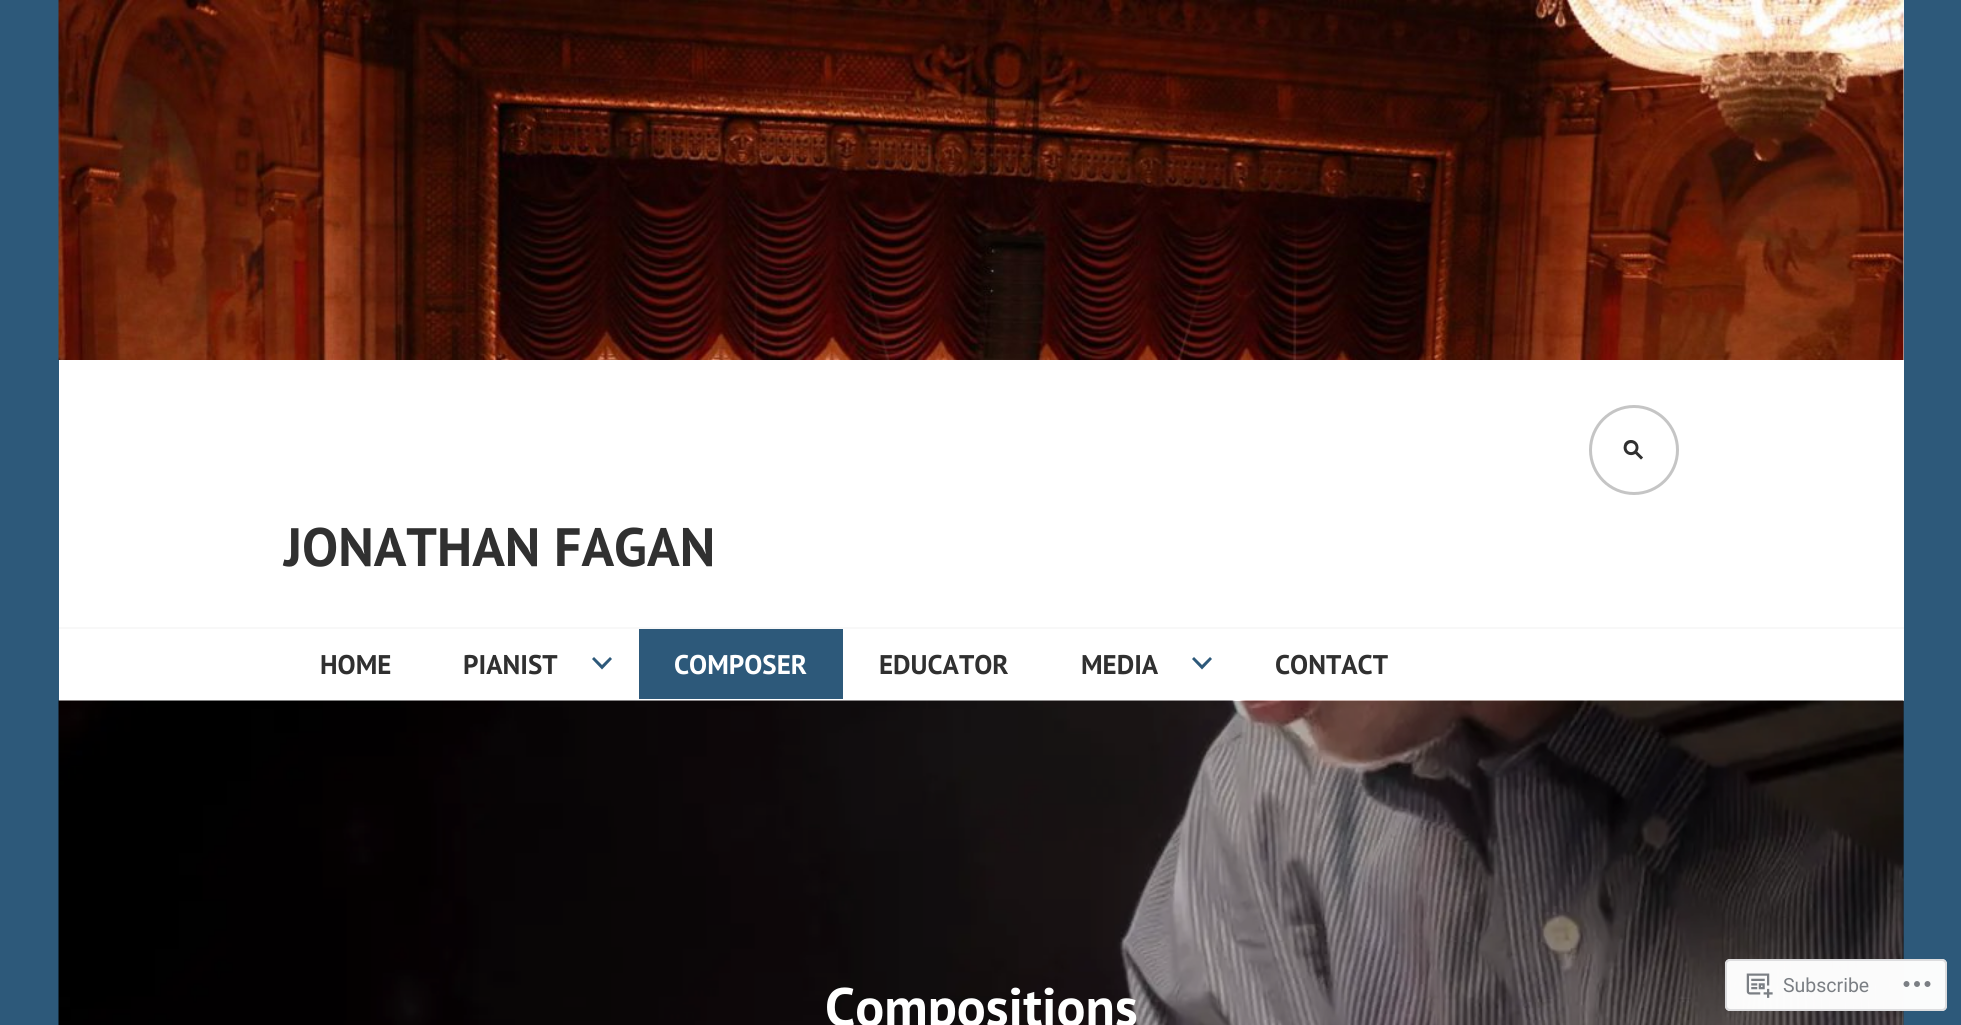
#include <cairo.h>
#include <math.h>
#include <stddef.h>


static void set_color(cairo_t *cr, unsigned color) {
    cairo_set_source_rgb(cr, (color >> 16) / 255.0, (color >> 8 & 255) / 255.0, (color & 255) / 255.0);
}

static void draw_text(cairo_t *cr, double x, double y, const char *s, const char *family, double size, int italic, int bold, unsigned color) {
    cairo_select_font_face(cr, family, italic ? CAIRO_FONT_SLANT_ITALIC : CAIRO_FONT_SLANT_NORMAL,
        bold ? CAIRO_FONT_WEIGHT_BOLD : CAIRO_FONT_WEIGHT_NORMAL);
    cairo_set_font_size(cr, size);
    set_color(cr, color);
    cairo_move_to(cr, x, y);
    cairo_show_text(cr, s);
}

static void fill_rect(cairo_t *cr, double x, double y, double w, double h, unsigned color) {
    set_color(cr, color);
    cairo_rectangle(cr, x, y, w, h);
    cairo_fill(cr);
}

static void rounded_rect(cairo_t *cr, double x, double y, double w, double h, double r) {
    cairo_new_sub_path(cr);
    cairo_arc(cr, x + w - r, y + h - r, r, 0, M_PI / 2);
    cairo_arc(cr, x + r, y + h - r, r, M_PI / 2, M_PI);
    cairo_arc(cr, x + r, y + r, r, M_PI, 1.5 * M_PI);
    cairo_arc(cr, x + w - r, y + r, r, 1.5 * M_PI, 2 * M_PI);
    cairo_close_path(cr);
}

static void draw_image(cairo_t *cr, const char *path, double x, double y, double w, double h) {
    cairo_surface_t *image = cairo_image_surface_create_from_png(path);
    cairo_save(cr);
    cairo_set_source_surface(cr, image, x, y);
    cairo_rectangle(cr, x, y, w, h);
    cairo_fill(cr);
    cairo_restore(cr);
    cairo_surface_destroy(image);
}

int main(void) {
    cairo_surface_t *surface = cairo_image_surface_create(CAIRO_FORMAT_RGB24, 1961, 1025);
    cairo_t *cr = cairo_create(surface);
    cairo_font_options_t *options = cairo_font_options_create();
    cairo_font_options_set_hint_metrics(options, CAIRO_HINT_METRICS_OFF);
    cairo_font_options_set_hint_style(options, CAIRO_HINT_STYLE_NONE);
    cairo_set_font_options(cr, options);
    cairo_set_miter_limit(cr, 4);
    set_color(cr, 0x2D597A);
    cairo_paint(cr);
    fill_rect(cr, 59, 0, 1845, 701, 0xFFFFFF);
    draw_image(cr, "assets/img1.png", 58, 0, 1846, 360);
    cairo_arc(cr, 1634, 450, 43.5, 0, 2 * M_PI);
    set_color(cr, 0xC5C5C5);
    cairo_set_line_width(cr, 3);
    cairo_stroke(cr);
    draw_image(cr, "assets/img2.png", 1623, 440, 20, 20);
    draw_text(cr, 284, 566, "JONATHAN FAGAN", "PT Sans", 54, 0, 1, 0x303030);
    fill_rect(cr, 59, 627, 1845, 2, 0xF8F8F8);
    draw_text(cr, 320, 674, "HOME", "PT Sans", 27, 0, 1, 0x303030);
    draw_text(cr, 463, 674, "PIANIST", "PT Sans", 27, 0, 1, 0x303030);
    set_color(cr, 0x2D597A);
    cairo_new_path(cr);
    cairo_move_to(cr, 610, 657);
    cairo_line_to(cr, 612, 659);
    cairo_line_to(cr, 602, 669.5);
    cairo_line_to(cr, 592, 659);
    cairo_line_to(cr, 594, 657);
    cairo_line_to(cr, 602, 665);
    cairo_close_path(cr);
    cairo_fill(cr);
    fill_rect(cr, 639, 629, 204, 70, 0x2D597A);
    draw_text(cr, 674, 674, "COMPOSER", "PT Sans", 27, 0, 1, 0xFFFFFF);
    draw_text(cr, 879, 674, "EDUCATOR", "PT Sans", 27, 0, 1, 0x303030);
    draw_text(cr, 1081, 674, "MEDIA", "PT Sans", 27, 0, 1, 0x303030);
    set_color(cr, 0x2D597A);
    cairo_new_path(cr);
    cairo_move_to(cr, 1210, 657);
    cairo_line_to(cr, 1212, 659);
    cairo_line_to(cr, 1202, 669.5);
    cairo_line_to(cr, 1192, 659);
    cairo_line_to(cr, 1194, 657);
    cairo_line_to(cr, 1202, 665);
    cairo_close_path(cr);
    cairo_fill(cr);
    draw_text(cr, 1275, 674, "CONTACT", "PT Sans", 27, 0, 1, 0x303030);
    fill_rect(cr, 1903, 701, 1, 324, 0x1F3E55);
    draw_image(cr, "assets/img3.png", 58, 700, 1846, 325);
    draw_text(cr, 825, 1026, "Compositions", "PT Sans", 54, 0, 1, 0xFFFFFF);
    cairo_set_source_rgba(cr, 1, 1, 1, 0.98);
    rounded_rect(cr, 1725, 959, 222, 52, 5);
    cairo_fill(cr);
    rounded_rect(cr, 1726, 960, 220, 50, 4);
    cairo_set_source_rgba(cr, 0.863, 0.863, 0.871, 0.98);
    cairo_set_line_width(cr, 2);
    cairo_stroke(cr);
    draw_image(cr, "assets/img4.png", 1746, 973, 27, 25);
    draw_text(cr, 1783, 992, "Subscribe", "Roboto", 19.5, 0, 0, 0x7B7F84);
    draw_image(cr, "assets/img5.png", 1903, 981, 28, 6);
    cairo_surface_write_to_png(surface, "output.png");
    cairo_font_options_destroy(options);
    cairo_destroy(cr);
    cairo_surface_destroy(surface);
    return 0;
}
